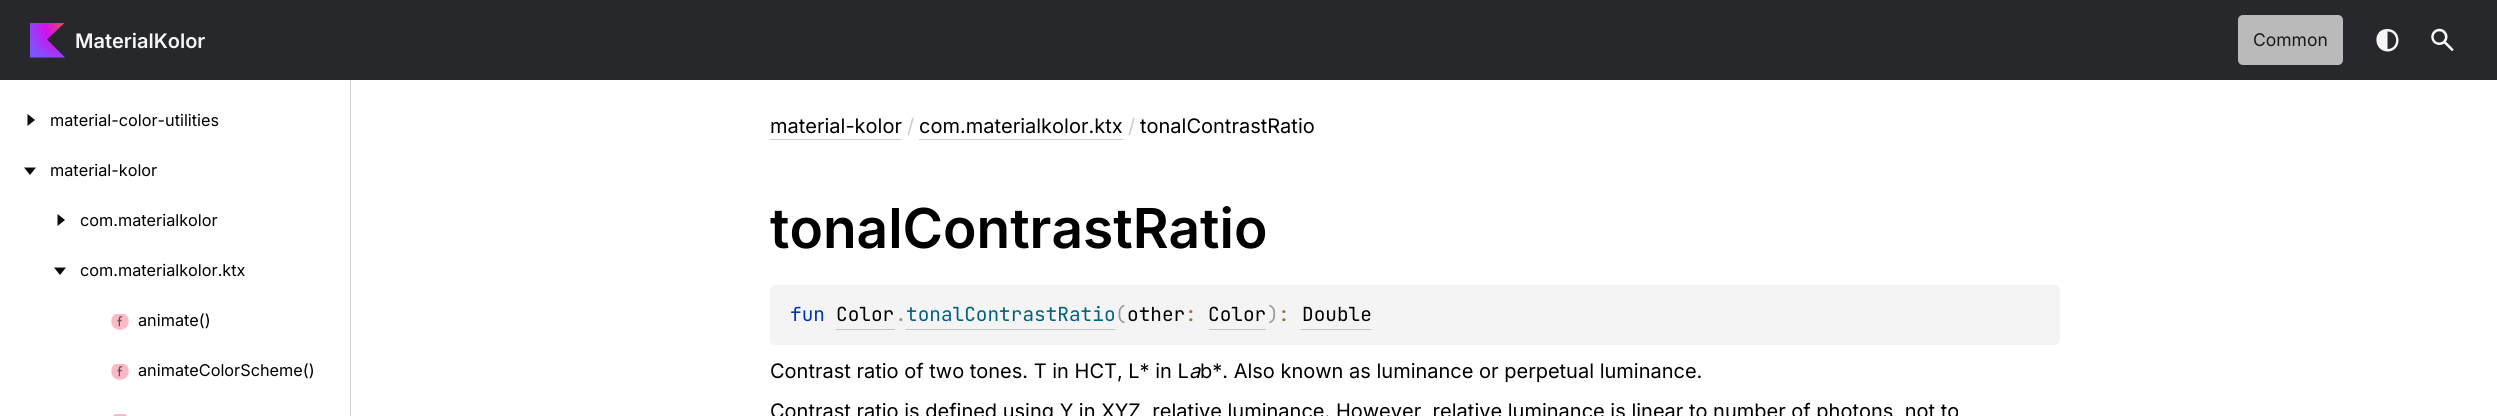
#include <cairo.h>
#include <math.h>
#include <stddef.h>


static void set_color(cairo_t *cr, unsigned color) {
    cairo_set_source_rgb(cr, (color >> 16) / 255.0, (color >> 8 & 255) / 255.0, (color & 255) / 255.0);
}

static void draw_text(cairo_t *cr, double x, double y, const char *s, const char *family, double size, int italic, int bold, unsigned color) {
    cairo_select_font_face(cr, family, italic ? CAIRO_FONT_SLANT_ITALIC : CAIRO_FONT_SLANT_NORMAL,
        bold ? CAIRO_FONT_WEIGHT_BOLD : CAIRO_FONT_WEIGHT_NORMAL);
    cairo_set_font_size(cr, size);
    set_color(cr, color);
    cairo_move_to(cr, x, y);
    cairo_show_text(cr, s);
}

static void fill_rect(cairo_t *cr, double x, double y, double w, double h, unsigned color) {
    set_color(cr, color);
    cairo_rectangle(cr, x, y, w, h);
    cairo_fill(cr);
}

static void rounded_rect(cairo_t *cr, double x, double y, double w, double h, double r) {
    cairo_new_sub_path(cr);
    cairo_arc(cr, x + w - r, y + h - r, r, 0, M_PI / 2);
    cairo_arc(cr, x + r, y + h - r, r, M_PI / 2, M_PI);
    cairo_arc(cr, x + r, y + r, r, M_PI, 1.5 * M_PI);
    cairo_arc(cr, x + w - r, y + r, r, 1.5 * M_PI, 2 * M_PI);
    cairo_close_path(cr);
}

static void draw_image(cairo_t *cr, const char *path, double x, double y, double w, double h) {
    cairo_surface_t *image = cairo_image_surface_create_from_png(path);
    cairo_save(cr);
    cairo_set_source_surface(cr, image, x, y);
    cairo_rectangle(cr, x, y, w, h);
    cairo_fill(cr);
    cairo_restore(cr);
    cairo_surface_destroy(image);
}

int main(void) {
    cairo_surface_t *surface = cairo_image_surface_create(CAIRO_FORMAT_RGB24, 2497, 416);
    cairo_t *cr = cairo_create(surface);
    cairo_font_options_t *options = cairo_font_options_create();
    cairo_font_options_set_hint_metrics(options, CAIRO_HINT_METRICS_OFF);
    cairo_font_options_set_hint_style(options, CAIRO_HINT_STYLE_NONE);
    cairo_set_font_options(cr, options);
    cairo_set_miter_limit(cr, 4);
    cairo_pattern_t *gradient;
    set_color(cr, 0xFFFFFF);
    cairo_paint(cr);
    fill_rect(cr, 0, 0, 2497, 80, 0x27282C);
    cairo_save(cr);
    cairo_rectangle(cr, 30, 23, 35, 35);
    cairo_clip(cr);
    gradient = cairo_pattern_create_radial(64, 24, 0, 64, 24, 40);
    cairo_pattern_add_color_stop_rgba(gradient, 0, 0.937, 0.282, 0.341, 1);
    cairo_pattern_add_color_stop_rgba(gradient, 0.47, 0.824, 0.067, 0.925, 1);
    cairo_pattern_add_color_stop_rgba(gradient, 1, 0.498, 0.322, 1, 1);
    cairo_set_source(cr, gradient);
    cairo_pattern_destroy(gradient);
    cairo_new_path(cr);
    cairo_move_to(cr, 65, 57.5);
    cairo_line_to(cr, 30, 57.5);
    cairo_line_to(cr, 30, 22.5);
    cairo_line_to(cr, 65, 22.5);
    cairo_line_to(cr, 47, 39.5);
    cairo_close_path(cr);
    cairo_fill(cr);
    cairo_restore(cr);
    draw_text(cr, 75, 48, "MaterialKolor", "Inter SemiBold", 20, 0, 0, 0xF6F6F7);
    set_color(cr, 0xBABABB);
    rounded_rect(cr, 2238, 15, 105, 50, 5);
    cairo_fill(cr);
    draw_text(cr, 2253, 46, "Common", "Inter", 17.5, 0, 0, 0x19191C);
    set_color(cr, 0xF6F6F7);
    cairo_new_path(cr);
    cairo_move_to(cr, 2387.5, 51.5);
    cairo_curve_to(cr, 2402.5, 51.5, 2402, 28.5, 2387, 29);
    cairo_curve_to(cr, 2372.5, 29, 2373, 51, 2387.5, 51.5);
    cairo_close_path(cr);
    cairo_move_to(cr, 2387.5, 31.5);
    cairo_curve_to(cr, 2399, 31.5, 2399, 49, 2387.5, 49);
    cairo_close_path(cr);
    cairo_fill(cr);
    draw_image(cr, "assets/img1.png", 2431, 28, 23, 24);
    fill_rect(cr, 350, 80, 1, 336, 0xD4D4D5);
    set_color(cr, 0x0A0A0A);
    cairo_new_path(cr);
    cairo_move_to(cr, 35, 120);
    cairo_line_to(cr, 27.5, 126);
    cairo_line_to(cr, 27.5, 114);
    cairo_close_path(cr);
    cairo_fill(cr);
    draw_text(cr, 50, 126, "material-color-utilities", "Inter", 16.25, 0, 0, 0x000000);
    set_color(cr, 0x0A0A0A);
    cairo_new_path(cr);
    cairo_move_to(cr, 30, 175);
    cairo_line_to(cr, 24, 167.5);
    cairo_line_to(cr, 36, 167.5);
    cairo_close_path(cr);
    cairo_fill(cr);
    draw_text(cr, 50, 176, "material-kolor", "Inter", 16.25, 0, 0, 0x000000);
    set_color(cr, 0x0A0A0A);
    cairo_new_path(cr);
    cairo_move_to(cr, 65, 220);
    cairo_line_to(cr, 57.5, 226);
    cairo_line_to(cr, 57.5, 214);
    cairo_close_path(cr);
    cairo_fill(cr);
    draw_text(cr, 80, 226, "com.materialkolor", "Inter", 16.25, 0, 0, 0x000000);
    set_color(cr, 0x0A0A0A);
    cairo_new_path(cr);
    cairo_move_to(cr, 60, 275);
    cairo_line_to(cr, 54, 267.5);
    cairo_line_to(cr, 66, 267.5);
    cairo_close_path(cr);
    cairo_fill(cr);
    draw_text(cr, 80, 276, "com.materialkolor.ktx", "Inter", 16.25, 0, 0, 0x000000);
    draw_image(cr, "assets/img2.png", 111, 314, 18, 17);
    draw_text(cr, 138, 326, "animate()", "Inter", 16.25, 0, 0, 0x000000);
    draw_image(cr, "assets/img2.png", 111, 364, 18, 17);
    draw_text(cr, 138, 376, "animateColorScheme()", "Inter", 16.25, 0, 0, 0x000000);
    draw_image(cr, "assets/img3.png", 113, 414, 14, 2);
    draw_text(cr, 770, 133, "material-kolor", "Inter", 20, 0, 0, 0x000000);
    fill_rect(cr, 770, 139, 131, 1, 0xCCCCCC);
    draw_text(cr, 907, 133, "/", "Inter", 20, 0, 0, 0xCCCCCC);
    draw_text(cr, 919, 133, "com.materialkolor.ktx", "Inter", 20, 0, 0, 0x000000);
    fill_rect(cr, 919, 139, 204, 1, 0xCCCCCC);
    draw_text(cr, 1128, 133, "/", "Inter", 20, 0, 0, 0xCCCCCC);
    draw_text(cr, 1140, 133, "tonalContrastRatio", "Inter", 20, 0, 0, 0x000000);
    draw_text(cr, 770, 248, "tonalContrastRatio", "Inter SemiBold", 55, 0, 0, 0x000000);
    set_color(cr, 0xF4F4F4);
    rounded_rect(cr, 770, 285, 1290, 60, 5);
    cairo_fill(cr);
    draw_text(cr, 790, 321, "fun", "JetBrains Mono", 19.4, 0, 0, 0x0033B3);
    draw_text(cr, 836, 321, "Color", "JetBrains Mono", 19.4, 0, 0, 0x000000);
    fill_rect(cr, 836, 329, 59, 1, 0xC3C3C3);
    draw_text(cr, 895, 321, ".", "JetBrains Mono", 19.4, 0, 0, 0x999999);
    draw_text(cr, 906, 321, "tonalContrastRatio", "JetBrains Mono", 19.4, 0, 0, 0x00627A);
    fill_rect(cr, 906, 329, 209, 1, 0xC3C3C3);
    draw_text(cr, 1115, 321, "(", "JetBrains Mono", 19.4, 0, 0, 0x999999);
    draw_text(cr, 1127, 321, "other", "JetBrains Mono", 19.4, 0, 0, 0x000000);
    draw_text(cr, 1185, 321, ":", "JetBrains Mono", 19.4, 0, 0, 0x9A6E3A);
    draw_text(cr, 1208, 321, "Color", "JetBrains Mono", 19.4, 0, 0, 0x000000);
    fill_rect(cr, 1209, 329, 57, 1, 0xC3C3C3);
    draw_text(cr, 1267, 321, ")", "JetBrains Mono", 19.4, 0, 0, 0x999999);
    draw_text(cr, 1278, 321, ":", "JetBrains Mono", 19.4, 0, 0, 0x9A6E3A);
    draw_text(cr, 1302, 321, "Double", "JetBrains Mono", 19.4, 0, 0, 0x000000);
    fill_rect(cr, 1301, 329, 70, 1, 0xC3C3C3);
    draw_text(cr, 770, 378, "Contrast ratio of two tones. T in HCT, L* in L", "Inter", 20, 0, 0, 0x000000);
    draw_text(cr, 1189, 378, "a", "Inter", 20, 1, 0, 0x000000);
    draw_text(cr, 1200, 378, "b*. Also known as luminance or perpetual luminance.", "Inter", 20, 0, 0, 0x000000);
    draw_text(cr, 770, 418, "Contrast ratio is defined using Y in XYZ, relative luminance. However, relative luminance is linear to number of photons, not to", "Inter", 20, 0, 0, 0x000000);
    cairo_surface_write_to_png(surface, "output.png");
    cairo_font_options_destroy(options);
    cairo_destroy(cr);
    cairo_surface_destroy(surface);
    return 0;
}
